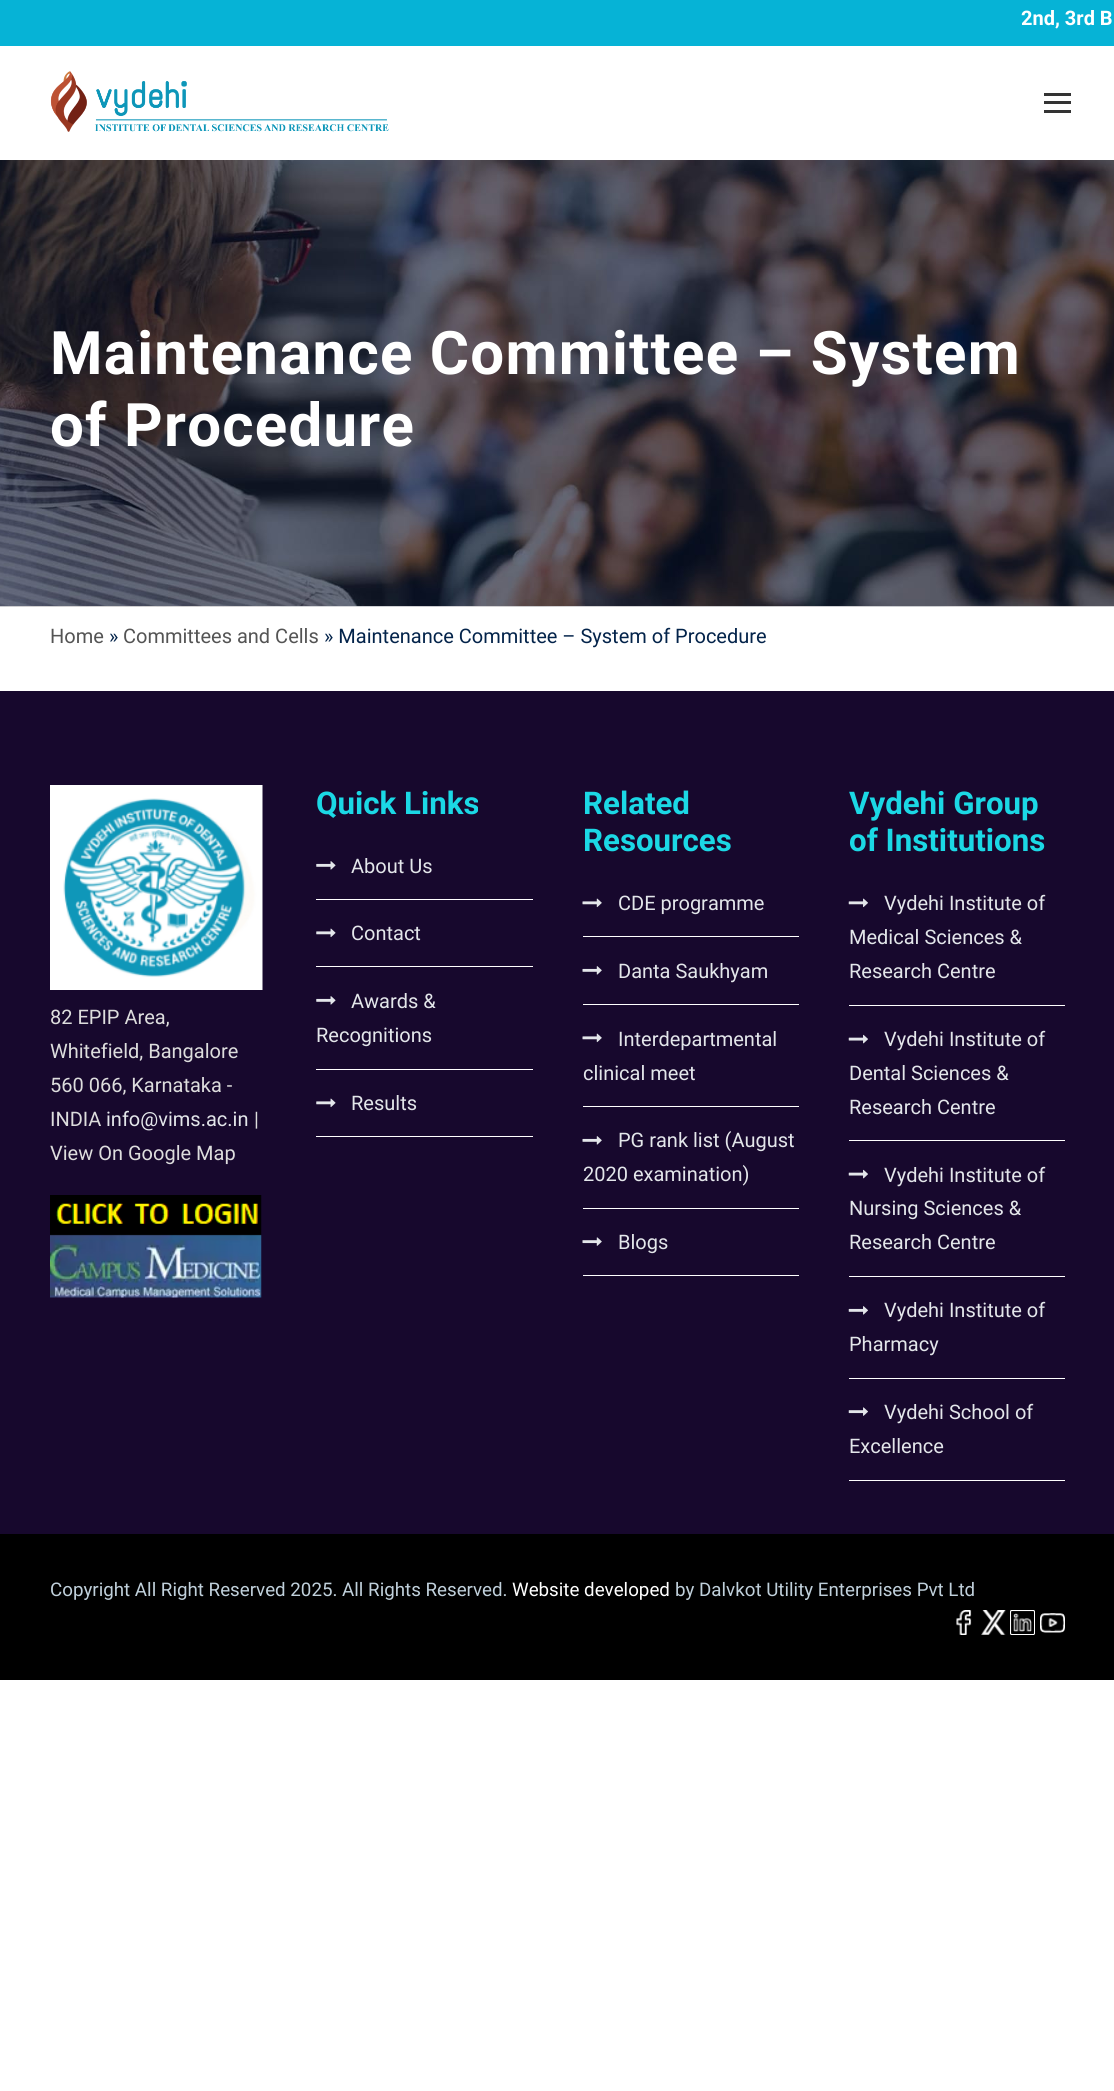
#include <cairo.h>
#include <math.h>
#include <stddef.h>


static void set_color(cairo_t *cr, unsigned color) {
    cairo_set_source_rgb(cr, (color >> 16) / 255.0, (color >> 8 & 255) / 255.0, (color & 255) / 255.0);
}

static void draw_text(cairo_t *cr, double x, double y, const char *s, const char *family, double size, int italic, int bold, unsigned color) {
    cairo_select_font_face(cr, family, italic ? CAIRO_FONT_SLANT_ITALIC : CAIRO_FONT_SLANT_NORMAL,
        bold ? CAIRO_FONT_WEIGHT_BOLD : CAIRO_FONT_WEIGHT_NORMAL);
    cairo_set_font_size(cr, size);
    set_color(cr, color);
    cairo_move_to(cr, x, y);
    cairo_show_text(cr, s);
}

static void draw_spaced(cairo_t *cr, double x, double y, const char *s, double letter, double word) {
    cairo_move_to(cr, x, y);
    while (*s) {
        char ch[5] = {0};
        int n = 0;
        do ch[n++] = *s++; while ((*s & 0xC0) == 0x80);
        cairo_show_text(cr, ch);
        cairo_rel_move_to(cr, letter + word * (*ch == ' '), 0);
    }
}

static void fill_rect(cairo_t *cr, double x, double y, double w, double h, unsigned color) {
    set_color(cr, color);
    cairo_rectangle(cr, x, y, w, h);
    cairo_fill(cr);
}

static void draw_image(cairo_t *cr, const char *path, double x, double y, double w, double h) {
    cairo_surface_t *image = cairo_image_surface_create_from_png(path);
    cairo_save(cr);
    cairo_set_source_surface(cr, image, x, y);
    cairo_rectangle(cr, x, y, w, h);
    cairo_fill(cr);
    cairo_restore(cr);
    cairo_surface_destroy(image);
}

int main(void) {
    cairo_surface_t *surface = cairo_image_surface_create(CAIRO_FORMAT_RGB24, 1114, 2091);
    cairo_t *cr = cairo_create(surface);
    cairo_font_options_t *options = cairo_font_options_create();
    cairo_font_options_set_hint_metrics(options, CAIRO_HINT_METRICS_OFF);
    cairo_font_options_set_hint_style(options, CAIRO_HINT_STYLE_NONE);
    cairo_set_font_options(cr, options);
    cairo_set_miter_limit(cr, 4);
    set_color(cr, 0xFFFFFF);
    cairo_paint(cr);
    fill_rect(cr, 0, 0, 1114, 46, 0x06B3D6);
    draw_text(cr, 1021, 25, "2nd, 3rd B", "Roboto", 20, 0, 1, 0xFFFFFF);
    draw_image(cr, "assets/img1.png", 50, 71, 339, 61);
    fill_rect(cr, 1044, 93, 27, 3, 0x333333);
    fill_rect(cr, 1044, 101, 27, 3, 0x333333);
    fill_rect(cr, 1044, 110, 27, 3, 0x333333);
    draw_image(cr, "assets/img2.png", 0, 160, 1114, 447);
    cairo_set_font_size(cr, 60);
    set_color(cr, 0xFFFFFF);
    draw_spaced(cr, 50, 374, "Maintenance Committee – System", 1.25, 0);
    draw_spaced(cr, 50, 446, "of Procedure", 1.25, 0);
    draw_text(cr, 50, 643, "Home", "Roboto", 20, 0, 0, 0x545454);
    draw_text(cr, 109, 643, "»", "Roboto", 20, 0, 0, 0x03234A);
    draw_text(cr, 123, 643, "Committees and Cells", "Roboto", 20, 0, 0, 0x545454);
    draw_text(cr, 324, 643, "» Maintenance Committee – System of Procedure", "Roboto", 20, 0, 0, 0x03234A);
    fill_rect(cr, 0, 691, 1114, 843, 0x17082D);
    draw_image(cr, "assets/img3.png", 50, 785, 213, 205);
    draw_text(cr, 50, 1024, "82 EPIP Area,", "Roboto", 20, 0, 0, 0xDDDDDD);
    draw_text(cr, 50, 1058, "Whitefield, Bangalore", "Roboto", 20, 0, 0, 0xDDDDDD);
    draw_text(cr, 50, 1092, "560 066, Karnataka -", "Roboto", 20, 0, 0, 0xDDDDDD);
    draw_text(cr, 50, 1126, "INDIA", "Roboto", 20, 0, 0, 0xDDDDDD);
    draw_text(cr, 106, 1126, "info@vims.ac.in", "Roboto", 20, 0, 0, 0xE3E6EA);
    draw_text(cr, 254, 1126, "|", "Roboto", 20, 0, 0, 0xDDDDDD);
    draw_text(cr, 50, 1160, "View On Google Map", "Roboto", 20, 0, 0, 0xDDDDDD);
    draw_image(cr, "assets/img4.png", 50, 1195, 212, 103);
    draw_text(cr, 316, 814, "Quick Links", "Roboto", 31.25, 0, 1, 0x1BD8E5);
    fill_rect(cr, 316, 899, 217, 1, 0xFFFFFF);
    draw_image(cr, "assets/img5.png", 316, 861, 20, 9);
    draw_text(cr, 351, 873, "About Us", "Roboto", 20, 0, 0, 0xE3E6EA);
    fill_rect(cr, 316, 966, 217, 1, 0xFFFFFF);
    draw_image(cr, "assets/img6.png", 316, 928, 20, 10);
    draw_text(cr, 351, 940, "Contact", "Roboto", 20, 0, 0, 0xE3E6EA);
    fill_rect(cr, 316, 1069, 217, 1, 0xFFFFFF);
    draw_image(cr, "assets/img5.png", 316, 996, 20, 9);
    draw_text(cr, 351, 1008, "Awards &", "Roboto", 20, 0, 0, 0xE3E6EA);
    draw_text(cr, 316, 1042, "Recognitions", "Roboto", 20, 0, 0, 0xE3E6EA);
    fill_rect(cr, 316, 1136, 217, 1, 0xFFFFFF);
    draw_image(cr, "assets/img6.png", 316, 1098, 20, 10);
    draw_text(cr, 351, 1110, "Results", "Roboto", 20, 0, 0, 0xE3E6EA);
    draw_text(cr, 583, 814, "Related", "Roboto", 31.25, 0, 1, 0x1BD8E5);
    draw_text(cr, 583, 851, "Resources", "Roboto", 31.25, 0, 1, 0x1BD8E5);
    fill_rect(cr, 583, 936, 216, 1, 0xFFFFFF);
    draw_image(cr, "assets/img7.png", 582, 898, 20, 10);
    draw_text(cr, 618, 910, "CDE programme", "Roboto", 20, 0, 0, 0xE3E6EA);
    fill_rect(cr, 583, 1004, 216, 1, 0xFFFFFF);
    draw_image(cr, "assets/img8.png", 582, 966, 20, 9);
    draw_text(cr, 618, 978, "Danta Saukhyam", "Roboto", 20, 0, 0, 0xE3E6EA);
    fill_rect(cr, 583, 1106, 216, 1, 0xFFFFFF);
    draw_image(cr, "assets/img7.png", 582, 1033, 20, 10);
    draw_text(cr, 618, 1046, "Interdepartmental", "Roboto", 20, 0, 0, 0xE3E6EA);
    draw_text(cr, 583, 1080, "clinical meet", "Roboto", 20, 0, 0, 0xE3E6EA);
    fill_rect(cr, 583, 1208, 216, 1, 0xFFFFFF);
    draw_image(cr, "assets/img8.png", 582, 1136, 20, 9);
    draw_text(cr, 618, 1147, "PG rank list (August", "Roboto", 20, 0, 0, 0xE3E6EA);
    draw_text(cr, 583, 1181, "2020 examination)", "Roboto", 20, 0, 0, 0xE3E6EA);
    fill_rect(cr, 583, 1275, 216, 1, 0xFFFFFF);
    draw_image(cr, "assets/img9.png", 582, 1237, 20, 9);
    draw_text(cr, 618, 1249, "Blogs", "Roboto", 20, 0, 0, 0xE3E6EA);
    draw_text(cr, 849, 814, "Vydehi Group", "Roboto", 31.25, 0, 1, 0x1BD8E5);
    draw_text(cr, 849, 851, "of Institutions", "Roboto", 31.25, 0, 1, 0x1BD8E5);
    fill_rect(cr, 849, 1005, 216, 1, 0xFFFFFF);
    draw_image(cr, "assets/img10.png", 848, 898, 20, 10);
    draw_text(cr, 884, 910, "Vydehi Institute of", "Roboto", 20, 0, 0, 0xE3E6EA);
    draw_text(cr, 849, 944, "Medical Sciences &", "Roboto", 20, 0, 0, 0xE3E6EA);
    draw_text(cr, 849, 978, "Research Centre", "Roboto", 20, 0, 0, 0xE3E6EA);
    fill_rect(cr, 849, 1140, 216, 1, 0xFFFFFF);
    draw_image(cr, "assets/img11.png", 848, 1034, 20, 10);
    draw_text(cr, 884, 1046, "Vydehi Institute of", "Roboto", 20, 0, 0, 0xE3E6EA);
    draw_text(cr, 849, 1080, "Dental Sciences &", "Roboto", 20, 0, 0, 0xE3E6EA);
    draw_text(cr, 849, 1114, "Research Centre", "Roboto", 20, 0, 0, 0xE3E6EA);
    fill_rect(cr, 849, 1276, 216, 1, 0xFFFFFF);
    draw_image(cr, "assets/img11.png", 848, 1169, 20, 10);
    draw_text(cr, 884, 1182, "Vydehi Institute of", "Roboto", 20, 0, 0, 0xE3E6EA);
    draw_text(cr, 849, 1215, "Nursing Sciences &", "Roboto", 20, 0, 0, 0xE3E6EA);
    draw_text(cr, 849, 1249, "Research Centre", "Roboto", 20, 0, 0, 0xE3E6EA);
    fill_rect(cr, 849, 1378, 216, 1, 0xFFFFFF);
    draw_image(cr, "assets/img12.png", 848, 1306, 20, 9);
    draw_text(cr, 884, 1317, "Vydehi Institute of", "Roboto", 20, 0, 0, 0xE3E6EA);
    draw_text(cr, 849, 1351, "Pharmacy", "Roboto", 20, 0, 0, 0xE3E6EA);
    fill_rect(cr, 849, 1480, 216, 1, 0xFFFFFF);
    draw_image(cr, "assets/img13.png", 848, 1407, 20, 9);
    draw_text(cr, 884, 1419, "Vydehi School of", "Roboto", 20, 0, 0, 0xE3E6EA);
    draw_text(cr, 849, 1453, "Excellence", "Roboto", 20, 0, 0, 0xE3E6EA);
    fill_rect(cr, 0, 1534, 1114, 146, 0x000000);
    draw_text(cr, 50, 1596, "Copyright All Right Reserved 2025. All Rights Reserved.", "Roboto", 18.75, 0, 0, 0xC0D0DB);
    draw_text(cr, 512, 1596, "Website developed", "Roboto", 18.75, 0, 0, 0xFFFFFF);
    draw_text(cr, 675, 1596, "by Dalvkot Utility Enterprises Pvt Ltd", "Roboto", 18.75, 0, 0, 0xC0D0DB);
    draw_image(cr, "assets/img14.png", 956, 1610, 16, 25);
    draw_image(cr, "assets/img15.png", 981, 1610, 25, 25);
    draw_image(cr, "assets/img16.png", 1010, 1610, 25, 25);
    draw_image(cr, "assets/img17.png", 1040, 1613, 25, 20);
    cairo_surface_write_to_png(surface, "output.png");
    cairo_font_options_destroy(options);
    cairo_destroy(cr);
    cairo_surface_destroy(surface);
    return 0;
}
